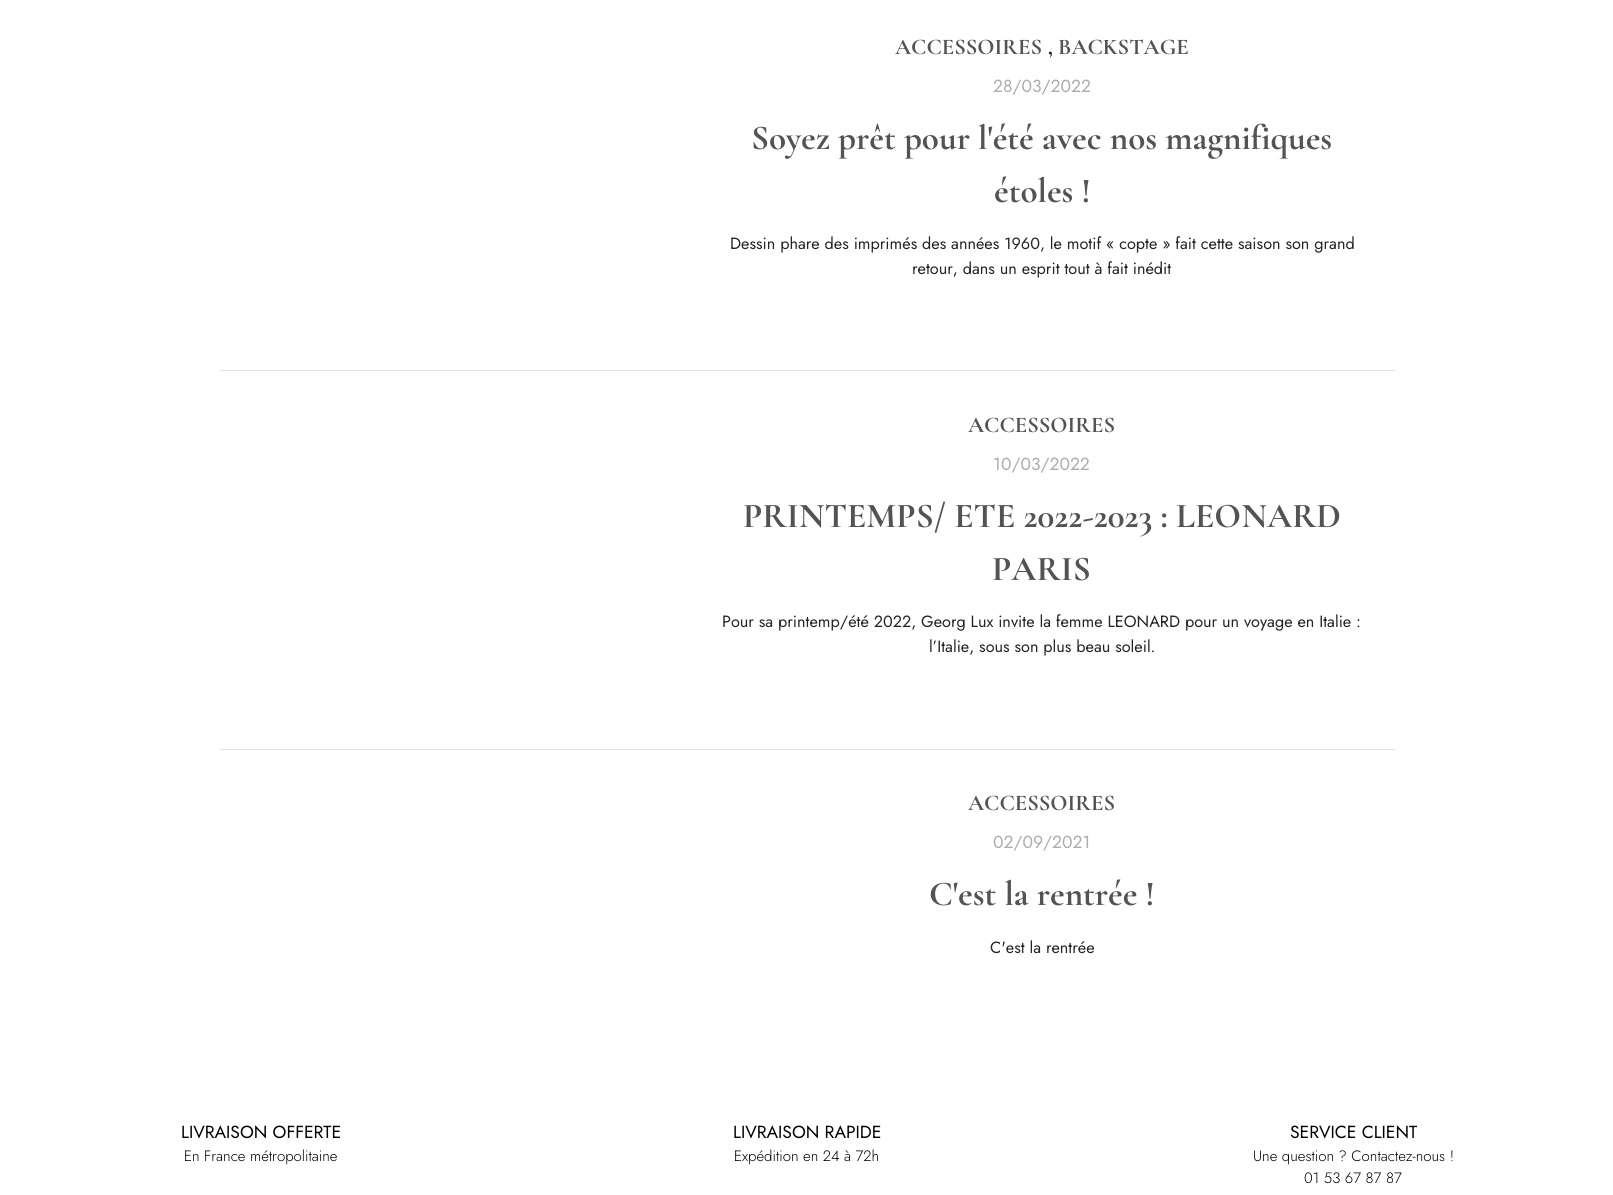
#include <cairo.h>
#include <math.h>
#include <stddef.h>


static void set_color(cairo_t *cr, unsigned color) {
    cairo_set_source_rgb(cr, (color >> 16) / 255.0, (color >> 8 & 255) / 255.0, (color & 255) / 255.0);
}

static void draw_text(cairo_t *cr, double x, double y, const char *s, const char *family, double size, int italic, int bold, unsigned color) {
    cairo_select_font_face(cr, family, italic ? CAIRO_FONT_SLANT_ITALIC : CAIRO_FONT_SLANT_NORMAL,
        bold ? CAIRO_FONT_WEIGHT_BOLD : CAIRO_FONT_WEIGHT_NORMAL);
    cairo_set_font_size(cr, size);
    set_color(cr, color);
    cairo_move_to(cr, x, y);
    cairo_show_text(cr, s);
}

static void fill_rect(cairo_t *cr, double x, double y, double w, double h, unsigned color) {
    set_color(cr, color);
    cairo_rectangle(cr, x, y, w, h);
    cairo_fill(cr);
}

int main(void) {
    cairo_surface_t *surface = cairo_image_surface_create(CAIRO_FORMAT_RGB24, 1613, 1195);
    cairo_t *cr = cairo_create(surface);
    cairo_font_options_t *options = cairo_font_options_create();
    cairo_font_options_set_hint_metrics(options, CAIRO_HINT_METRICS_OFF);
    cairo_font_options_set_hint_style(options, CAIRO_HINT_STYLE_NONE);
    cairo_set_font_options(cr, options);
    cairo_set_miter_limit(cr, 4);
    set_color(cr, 0xFFFFFF);
    cairo_paint(cr);
    draw_text(cr, 895, 54, "ACCESSOIRES", "Cormorant Garamond Light", 22.5, 0, 0, 0x535353);
    draw_text(cr, 1048, 54, ",", "Cormorant Garamond Light", 22.5, 0, 0, 0x212529);
    draw_text(cr, 1058, 54, "BACKSTAGE", "Cormorant Garamond Light", 22.5, 0, 0, 0x535353);
    draw_text(cr, 993, 92, "28/03/2022", "Jost", 17.5, 0, 0, 0xACACAC);
    draw_text(cr, 751, 149, "Soyez prêt pour l'été avec nos magnifiques", "Cormorant Garamond Light", 35, 0, 0, 0x535353);
    draw_text(cr, 994, 202, "étoles !", "Cormorant Garamond Light", 35, 0, 0, 0x535353);
    draw_text(cr, 730, 249, "Dessin phare des imprimés des années 1960, le motif « copte » fait cette saison son grand", "Jost", 16.25, 0, 0, 0x212529);
    draw_text(cr, 912, 274, "retour, dans un esprit tout à fait inédit", "Jost", 16.25, 0, 0, 0x212529);
    fill_rect(cr, 220, 370, 1175, 1, 0xDEE2E6);
    draw_text(cr, 968, 432, "ACCESSOIRES", "Cormorant Garamond Light", 22.5, 0, 0, 0x535353);
    draw_text(cr, 993, 470, "10/03/2022", "Jost", 17.5, 0, 0, 0xACACAC);
    draw_text(cr, 743, 527, "PRINTEMPS/ ETE 2022-2023 : LEONARD", "Cormorant Garamond Light", 35, 0, 0, 0x535353);
    draw_text(cr, 992, 580, "PARIS", "Cormorant Garamond Light", 35, 0, 0, 0x535353);
    draw_text(cr, 722, 627, "Pour sa printemp/été 2022, Georg Lux invite la femme LEONARD pour un voyage en Italie :", "Jost", 16.25, 0, 0, 0x212529);
    draw_text(cr, 929, 652, "l’Italie, sous son plus beau soleil.", "Jost", 16.25, 0, 0, 0x212529);
    fill_rect(cr, 220, 749, 1175, 1, 0xDEE2E6);
    draw_text(cr, 968, 810, "ACCESSOIRES", "Cormorant Garamond Light", 22.5, 0, 0, 0x535353);
    draw_text(cr, 993, 848, "02/09/2021", "Jost", 17.5, 0, 0, 0xACACAC);
    draw_text(cr, 929, 905, "C'est la rentrée !", "Cormorant Garamond Light", 35, 0, 0, 0x535353);
    draw_text(cr, 990, 953, "C'est la rentrée", "Jost", 16.25, 0, 0, 0x212529);
    draw_text(cr, 181, 1138, "LIVRAISON OFFERTE", "Jost", 17.5, 0, 0, 0x000000);
    draw_text(cr, 184, 1161, "En France métropolitaine", "Jost Light", 15, 0, 0, 0x000000);
    draw_text(cr, 733, 1138, "LIVRAISON RAPIDE", "Jost", 17.5, 0, 0, 0x000000);
    draw_text(cr, 734, 1161, "Expédition en 24 à 72h", "Jost Light", 15, 0, 0, 0x000000);
    draw_text(cr, 1290, 1138, "SERVICE CLIENT", "Jost", 17.5, 0, 0, 0x000000);
    draw_text(cr, 1253, 1161, "Une question ? Contactez-nous !", "Jost Light", 15, 0, 0, 0x000000);
    draw_text(cr, 1304, 1183, "01 53 67 87 87", "Jost Light", 15, 0, 0, 0x000000);
    cairo_surface_write_to_png(surface, "output.png");
    cairo_font_options_destroy(options);
    cairo_destroy(cr);
    cairo_surface_destroy(surface);
    return 0;
}
